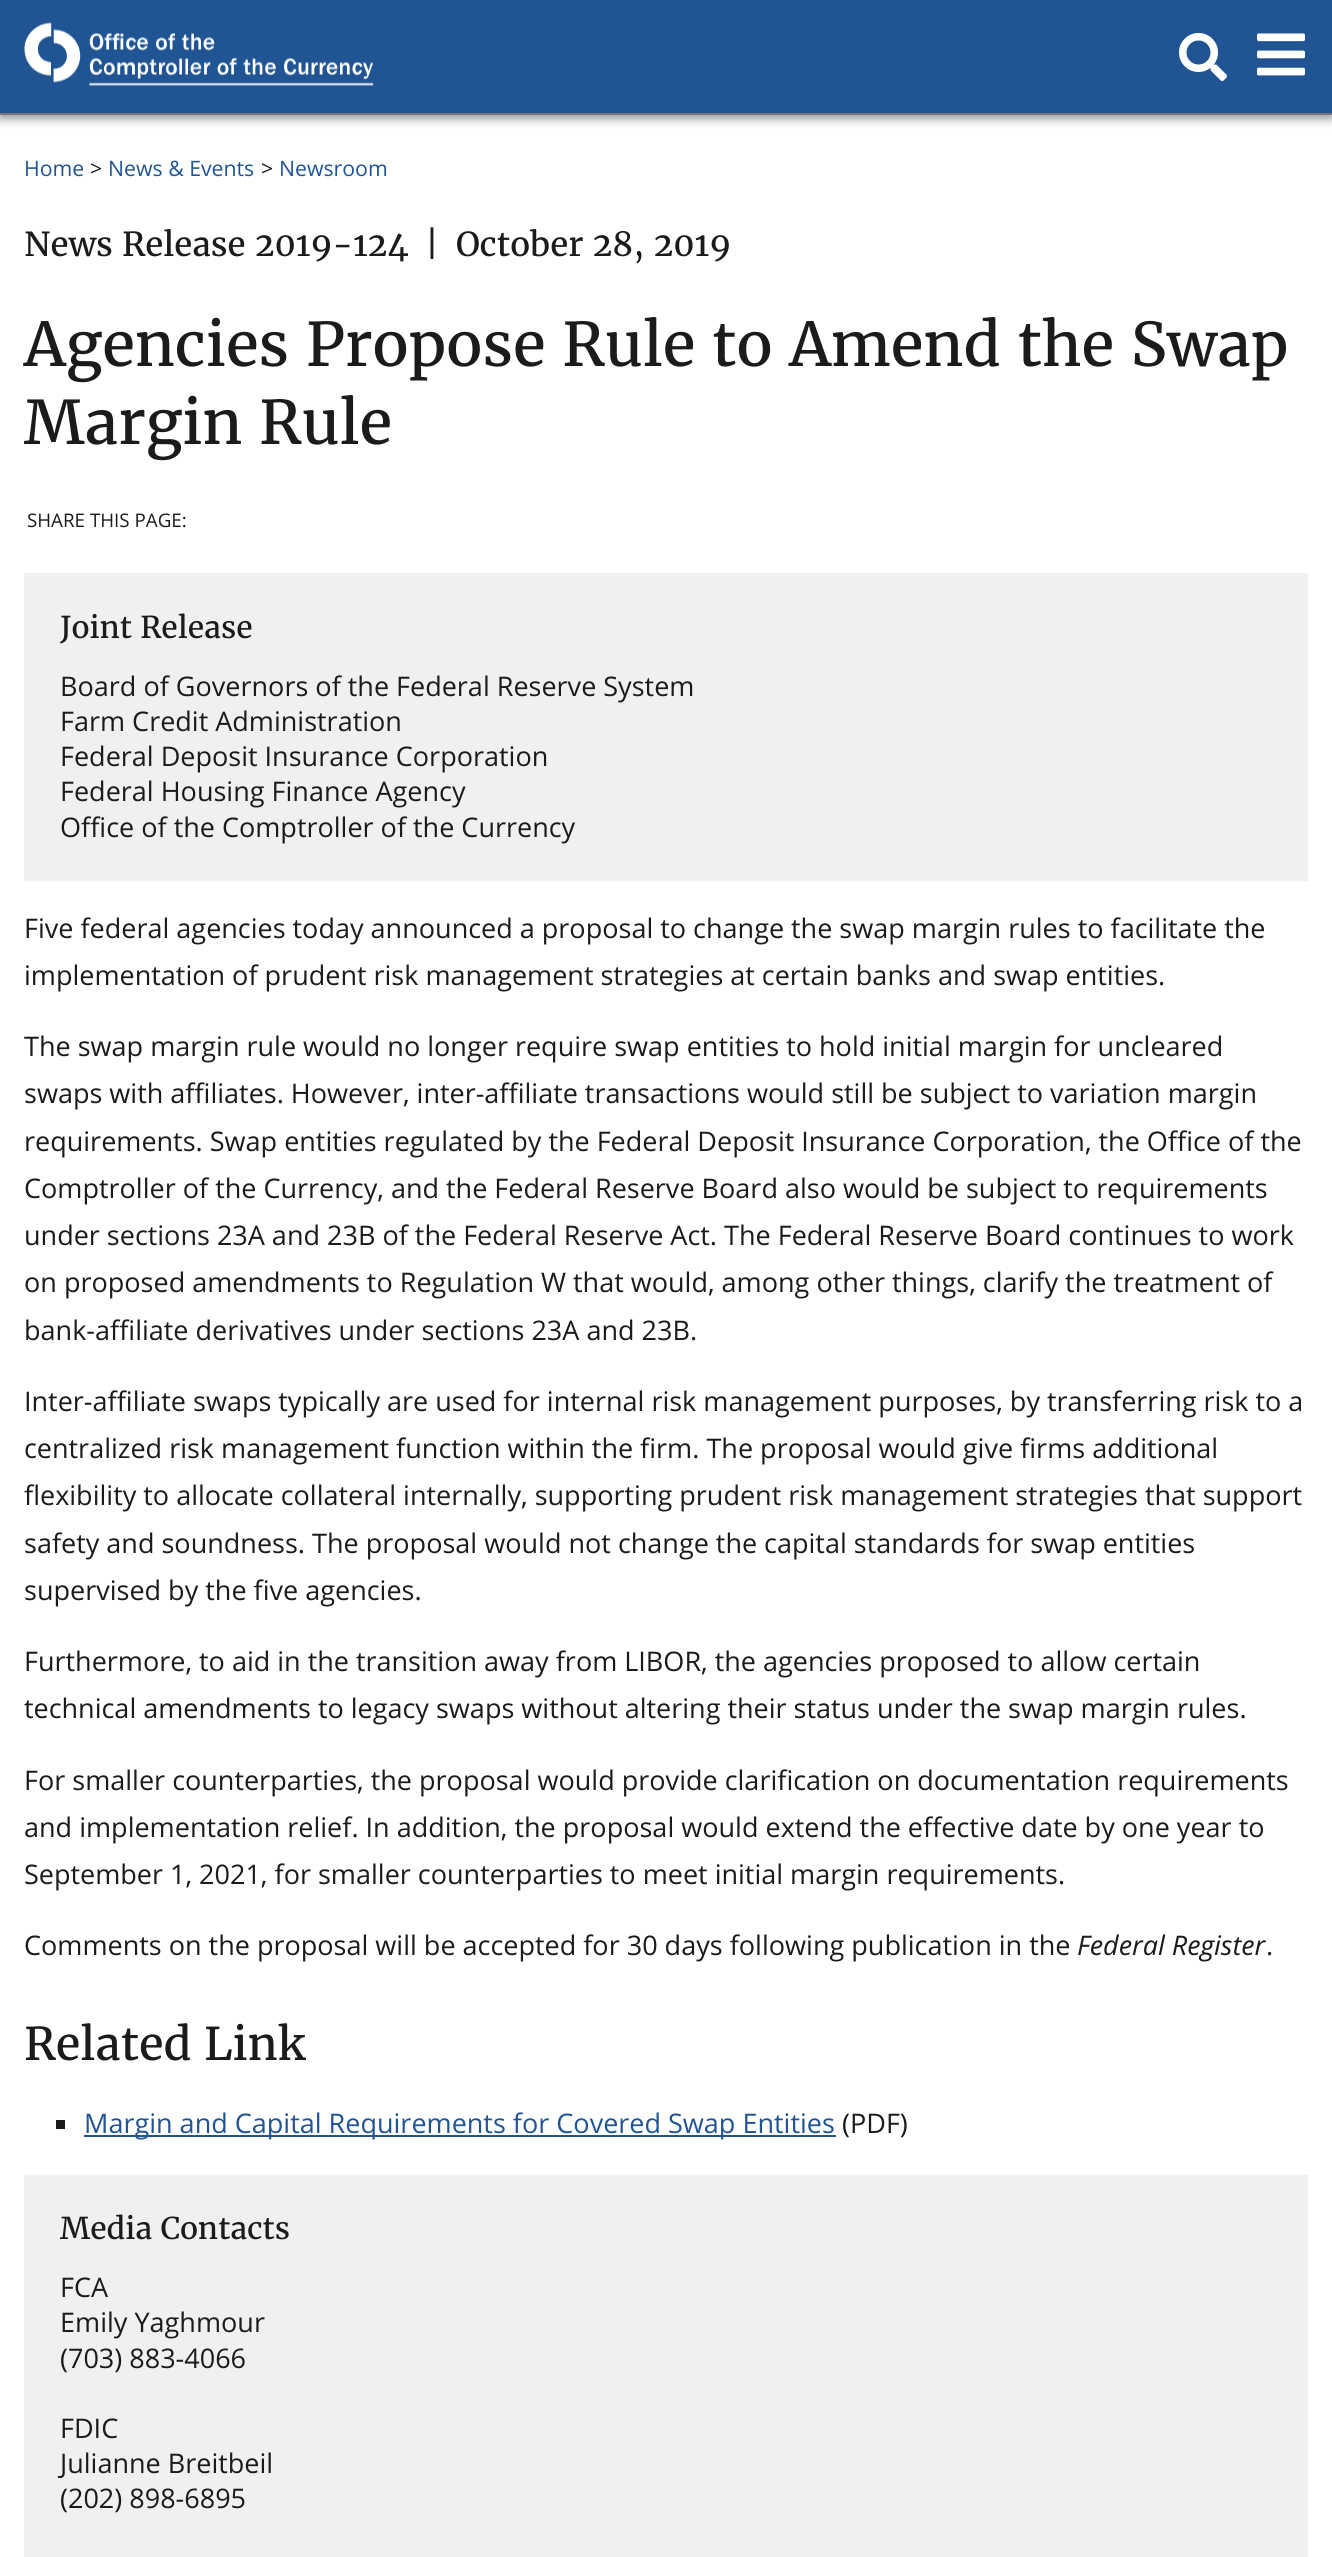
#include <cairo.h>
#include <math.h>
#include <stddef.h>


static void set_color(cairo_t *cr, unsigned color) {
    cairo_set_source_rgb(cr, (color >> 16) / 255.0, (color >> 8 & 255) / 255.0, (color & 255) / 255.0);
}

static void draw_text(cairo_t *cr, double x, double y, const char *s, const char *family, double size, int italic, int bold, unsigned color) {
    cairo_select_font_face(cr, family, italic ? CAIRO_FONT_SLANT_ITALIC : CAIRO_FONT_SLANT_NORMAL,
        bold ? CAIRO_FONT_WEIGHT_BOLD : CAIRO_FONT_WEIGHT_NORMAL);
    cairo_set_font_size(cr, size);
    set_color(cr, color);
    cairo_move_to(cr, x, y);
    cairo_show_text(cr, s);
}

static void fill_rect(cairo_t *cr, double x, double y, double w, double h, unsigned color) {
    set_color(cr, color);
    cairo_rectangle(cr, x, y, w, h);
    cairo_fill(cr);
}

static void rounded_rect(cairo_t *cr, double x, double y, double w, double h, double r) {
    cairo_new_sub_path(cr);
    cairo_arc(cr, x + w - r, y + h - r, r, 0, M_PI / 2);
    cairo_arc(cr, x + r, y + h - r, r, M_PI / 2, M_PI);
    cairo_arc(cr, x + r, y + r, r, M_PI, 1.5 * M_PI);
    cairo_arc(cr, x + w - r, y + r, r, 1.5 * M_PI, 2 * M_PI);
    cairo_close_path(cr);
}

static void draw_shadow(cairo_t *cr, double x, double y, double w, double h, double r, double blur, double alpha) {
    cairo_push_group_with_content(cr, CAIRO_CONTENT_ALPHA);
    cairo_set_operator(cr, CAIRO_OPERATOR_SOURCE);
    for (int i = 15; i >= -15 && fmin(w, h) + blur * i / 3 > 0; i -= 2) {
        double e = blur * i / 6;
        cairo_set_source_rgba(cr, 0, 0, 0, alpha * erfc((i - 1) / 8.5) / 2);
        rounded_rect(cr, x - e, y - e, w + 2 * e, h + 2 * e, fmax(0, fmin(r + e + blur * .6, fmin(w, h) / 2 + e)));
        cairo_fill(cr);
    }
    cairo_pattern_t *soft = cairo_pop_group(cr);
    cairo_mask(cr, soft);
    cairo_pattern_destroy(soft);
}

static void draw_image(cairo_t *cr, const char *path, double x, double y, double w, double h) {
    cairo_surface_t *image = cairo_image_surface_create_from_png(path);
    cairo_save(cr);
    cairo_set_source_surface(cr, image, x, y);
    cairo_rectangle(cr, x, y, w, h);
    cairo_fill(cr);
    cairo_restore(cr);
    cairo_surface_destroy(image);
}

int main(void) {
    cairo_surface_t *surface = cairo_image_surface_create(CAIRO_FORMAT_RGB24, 1332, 2557);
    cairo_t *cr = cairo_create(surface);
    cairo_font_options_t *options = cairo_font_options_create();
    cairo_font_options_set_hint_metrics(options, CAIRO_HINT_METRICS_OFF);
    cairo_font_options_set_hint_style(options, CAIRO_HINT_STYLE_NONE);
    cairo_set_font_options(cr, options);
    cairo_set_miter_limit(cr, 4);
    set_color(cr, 0xFFFFFF);
    cairo_paint(cr);
    set_color(cr, 0x98999B);
    draw_shadow(cr, 0, 5, 1332, 114, 0, 4.5, 1);
    fill_rect(cr, 0, 0, 1332, 113, 0x205493);
    fill_rect(cr, 0, 113, 1332, 2, 0x757575);
    draw_image(cr, "assets/img1.png", 24, 22, 350, 64);
    draw_image(cr, "assets/img2.png", 1179, 33, 48, 48);
    draw_image(cr, "assets/img3.png", 1257, 33, 48, 43);
    draw_text(cr, 24, 176, "Home", "Open Sans", 21.25, 0, 0, 0x205493);
    draw_text(cr, 90, 176, ">", "Open Sans", 21.25, 0, 0, 0x1B1B1B);
    draw_text(cr, 108, 176, "News & Events", "Open Sans", 21.25, 0, 0, 0x205493);
    draw_text(cr, 261, 176, ">", "Open Sans", 21.25, 0, 0, 0x1B1B1B);
    draw_text(cr, 279, 176, "Newsroom", "Open Sans", 21.25, 0, 0, 0x205493);
    draw_text(cr, 24, 256, "News Release 2019-124", "Merriweather", 33, 0, 0, 0x1B1B1B);
    draw_text(cr, 425, 256, "|", "Merriweather", 33, 0, 0, 0x1B1B1B);
    draw_text(cr, 456, 256, "October 28, 2019", "Merriweather", 33, 0, 0, 0x1B1B1B);
    draw_text(cr, 24, 366, "Agencies Propose Rule to Amend the Swap", "Merriweather", 60, 0, 0, 0x1B1B1B);
    draw_text(cr, 24, 444, "Margin Rule", "Merriweather", 60, 0, 0, 0x1B1B1B);
    draw_text(cr, 27, 527, "SHARE THIS PAGE:", "Open Sans", 18.75, 0, 0, 0x1B1B1B);
    fill_rect(cr, 24, 573, 1284, 308, 0xF0F0F0);
    draw_text(cr, 60, 638, "Joint Release", "Merriweather", 30, 0, 0, 0x1B1B1B);
    draw_text(cr, 60, 696, "Board of Governors of the Federal Reserve System", "Open Sans", 27, 0, 0, 0x1B1B1B);
    draw_text(cr, 60, 731, "Farm Credit Administration", "Open Sans", 27, 0, 0, 0x1B1B1B);
    draw_text(cr, 60, 766, "Federal Deposit Insurance Corporation", "Open Sans", 27, 0, 0, 0x1B1B1B);
    draw_text(cr, 60, 801, "Federal Housing Finance Agency", "Open Sans", 27, 0, 0, 0x1B1B1B);
    draw_text(cr, 60, 837, "Office of the Comptroller of the Currency", "Open Sans", 27, 0, 0, 0x1B1B1B);
    draw_text(cr, 24, 938, "Five federal agencies today announced a proposal to change the swap margin rules to facilitate the", "Open Sans", 27, 0, 0, 0x1B1B1B);
    draw_text(cr, 24, 985, "implementation of prudent risk management strategies at certain banks and swap entities.", "Open Sans", 27, 0, 0, 0x1B1B1B);
    draw_text(cr, 24, 1056, "The swap margin rule would no longer require swap entities to hold initial margin for uncleared", "Open Sans", 27, 0, 0, 0x1B1B1B);
    draw_text(cr, 24, 1103, "swaps with affiliates. However, inter-affiliate transactions would still be subject to variation margin", "Open Sans", 27, 0, 0, 0x1B1B1B);
    draw_text(cr, 24, 1151, "requirements. Swap entities regulated by the Federal Deposit Insurance Corporation, the Office of the", "Open Sans", 27, 0, 0, 0x1B1B1B);
    draw_text(cr, 24, 1198, "Comptroller of the Currency, and the Federal Reserve Board also would be subject to requirements", "Open Sans", 27, 0, 0, 0x1B1B1B);
    draw_text(cr, 24, 1245, "under sections 23A and 23B of the Federal Reserve Act. The Federal Reserve Board continues to work", "Open Sans", 27, 0, 0, 0x1B1B1B);
    draw_text(cr, 24, 1292, "on proposed amendments to Regulation W that would, among other things, clarify the treatment of", "Open Sans", 27, 0, 0, 0x1B1B1B);
    draw_text(cr, 24, 1340, "bank-affiliate derivatives under sections 23A and 23B.", "Open Sans", 27, 0, 0, 0x1B1B1B);
    draw_text(cr, 24, 1411, "Inter-affiliate swaps typically are used for internal risk management purposes, by transferring risk to a", "Open Sans", 27, 0, 0, 0x1B1B1B);
    draw_text(cr, 24, 1458, "centralized risk management function within the firm. The proposal would give firms additional", "Open Sans", 27, 0, 0, 0x1B1B1B);
    draw_text(cr, 24, 1505, "flexibility to allocate collateral internally, supporting prudent risk management strategies that support", "Open Sans", 27, 0, 0, 0x1B1B1B);
    draw_text(cr, 24, 1553, "safety and soundness. The proposal would not change the capital standards for swap entities", "Open Sans", 27, 0, 0, 0x1B1B1B);
    draw_text(cr, 24, 1600, "supervised by the five agencies.", "Open Sans", 27, 0, 0, 0x1B1B1B);
    draw_text(cr, 24, 1671, "Furthermore, to aid in the transition away from LIBOR, the agencies proposed to allow certain", "Open Sans", 27, 0, 0, 0x1B1B1B);
    draw_text(cr, 24, 1718, "technical amendments to legacy swaps without altering their status under the swap margin rules.", "Open Sans", 27, 0, 0, 0x1B1B1B);
    draw_text(cr, 24, 1790, "For smaller counterparties, the proposal would provide clarification on documentation requirements", "Open Sans", 27, 0, 0, 0x1B1B1B);
    draw_text(cr, 24, 1837, "and implementation relief. In addition, the proposal would extend the effective date by one year to", "Open Sans", 27, 0, 0, 0x1B1B1B);
    draw_text(cr, 24, 1884, "September 1, 2021, for smaller counterparties to meet initial margin requirements.", "Open Sans", 27, 0, 0, 0x1B1B1B);
    draw_text(cr, 24, 1955, "Comments on the proposal will be accepted for 30 days following publication in the", "Open Sans", 27, 0, 0, 0x1B1B1B);
    draw_text(cr, 1077, 1955, "Federal Register", "Open Sans", 27, 1, 0, 0x1B1B1B);
    draw_text(cr, 1266, 1955, ".", "Open Sans", 27, 0, 0, 0x1B1B1B);
    draw_text(cr, 24, 2060, "Related Link", "Merriweather", 45, 0, 0, 0x1B1B1B);
    fill_rect(cr, 56, 2120, 9, 9, 0x1B1B1B);
    fill_rect(cr, 84, 2135, 752, 2, 0x205493);
    draw_text(cr, 84, 2133, "Margin and Capital Requirements for Covered Swap Entities", "Open Sans", 27, 0, 0, 0x205493);
    draw_text(cr, 842, 2133, "(PDF)", "Open Sans", 27, 0, 0, 0x1B1B1B);
    fill_rect(cr, 24, 2175, 1284, 382, 0xF0F0F0);
    draw_text(cr, 60, 2239, "Media Contacts", "Merriweather", 30, 0, 0, 0x1B1B1B);
    draw_text(cr, 60, 2297, "FCA", "Open Sans", 27, 0, 0, 0x1B1B1B);
    draw_text(cr, 60, 2332, "Emily Yaghmour", "Open Sans", 27, 0, 0, 0x1B1B1B);
    draw_text(cr, 60, 2368, "(703) 883-4066", "Open Sans", 27, 0, 0, 0x1B1B1B);
    draw_text(cr, 60, 2438, "FDIC", "Open Sans", 27, 0, 0, 0x1B1B1B);
    draw_text(cr, 60, 2473, "Julianne Breitbeil", "Open Sans", 27, 0, 0, 0x1B1B1B);
    draw_text(cr, 60, 2508, "(202) 898-6895", "Open Sans", 27, 0, 0, 0x1B1B1B);
    cairo_surface_write_to_png(surface, "output.png");
    cairo_font_options_destroy(options);
    cairo_destroy(cr);
    cairo_surface_destroy(surface);
    return 0;
}
